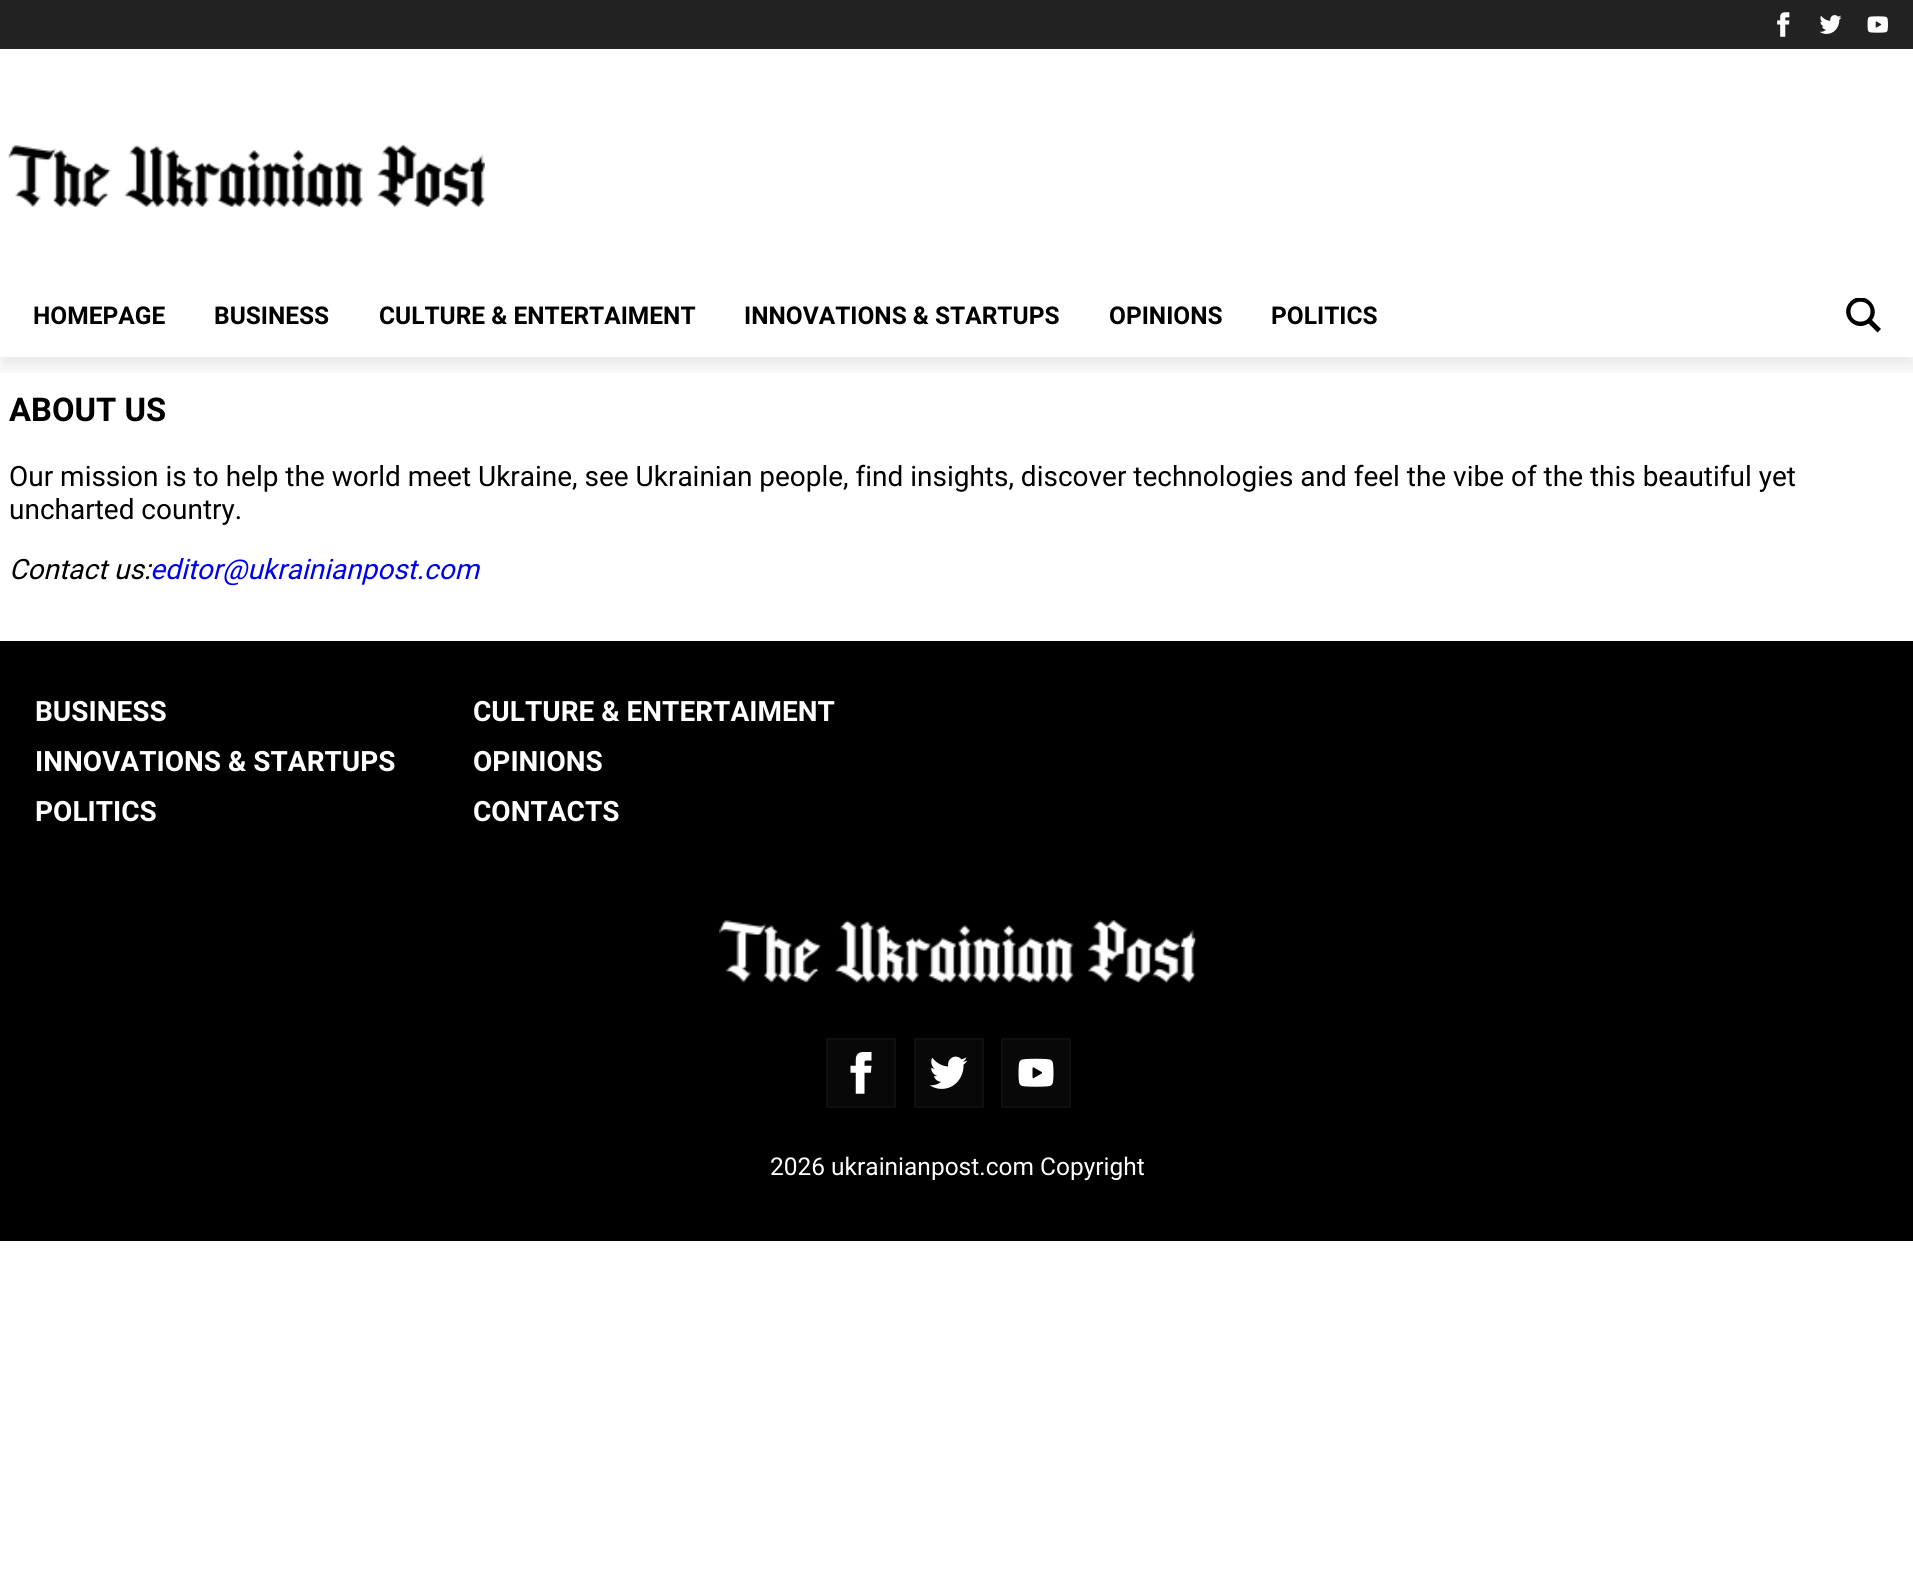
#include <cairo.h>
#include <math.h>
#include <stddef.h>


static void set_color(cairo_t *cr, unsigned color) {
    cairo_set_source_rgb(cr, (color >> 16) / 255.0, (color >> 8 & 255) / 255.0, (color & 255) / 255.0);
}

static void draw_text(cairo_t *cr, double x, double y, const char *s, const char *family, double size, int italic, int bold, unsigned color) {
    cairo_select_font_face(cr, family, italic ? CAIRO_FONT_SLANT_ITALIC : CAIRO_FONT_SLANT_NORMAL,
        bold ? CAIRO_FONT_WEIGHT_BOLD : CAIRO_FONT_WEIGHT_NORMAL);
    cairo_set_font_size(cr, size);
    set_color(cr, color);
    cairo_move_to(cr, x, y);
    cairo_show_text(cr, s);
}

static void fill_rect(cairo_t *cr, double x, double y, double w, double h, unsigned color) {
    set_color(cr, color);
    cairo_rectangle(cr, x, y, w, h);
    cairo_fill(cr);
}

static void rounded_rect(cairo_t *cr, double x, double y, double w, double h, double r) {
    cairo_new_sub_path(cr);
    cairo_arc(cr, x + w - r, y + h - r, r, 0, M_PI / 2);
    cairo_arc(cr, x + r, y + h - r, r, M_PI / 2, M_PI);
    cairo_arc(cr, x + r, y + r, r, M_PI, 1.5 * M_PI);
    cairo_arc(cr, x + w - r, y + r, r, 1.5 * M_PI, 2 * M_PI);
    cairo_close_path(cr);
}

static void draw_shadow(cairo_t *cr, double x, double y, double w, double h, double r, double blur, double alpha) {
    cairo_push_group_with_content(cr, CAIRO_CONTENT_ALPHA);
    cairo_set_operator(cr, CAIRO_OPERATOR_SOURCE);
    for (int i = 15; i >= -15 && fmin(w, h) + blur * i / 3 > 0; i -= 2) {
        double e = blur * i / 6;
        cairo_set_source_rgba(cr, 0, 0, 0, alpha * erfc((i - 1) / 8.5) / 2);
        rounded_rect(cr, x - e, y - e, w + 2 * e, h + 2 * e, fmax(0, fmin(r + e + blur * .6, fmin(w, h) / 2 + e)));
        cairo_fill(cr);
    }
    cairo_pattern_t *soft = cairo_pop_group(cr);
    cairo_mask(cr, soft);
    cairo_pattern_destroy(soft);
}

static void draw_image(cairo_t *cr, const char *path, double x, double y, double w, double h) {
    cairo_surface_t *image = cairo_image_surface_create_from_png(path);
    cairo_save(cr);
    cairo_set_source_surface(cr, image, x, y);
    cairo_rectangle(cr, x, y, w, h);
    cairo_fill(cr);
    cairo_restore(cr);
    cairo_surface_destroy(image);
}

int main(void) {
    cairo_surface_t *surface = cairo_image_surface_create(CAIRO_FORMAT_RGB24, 1913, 1580);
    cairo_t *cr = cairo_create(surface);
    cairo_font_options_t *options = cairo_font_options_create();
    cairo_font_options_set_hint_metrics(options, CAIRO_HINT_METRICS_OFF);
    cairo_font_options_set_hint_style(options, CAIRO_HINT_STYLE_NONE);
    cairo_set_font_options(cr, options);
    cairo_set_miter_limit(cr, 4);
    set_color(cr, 0xFFFFFF);
    cairo_paint(cr);
    cairo_save(cr);
    cairo_rectangle(cr, 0, 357, 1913, 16);
    cairo_clip(cr);
    set_color(cr, 0x000000);
    draw_shadow(cr, 0, 11, 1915, 357, 0, 7, 0.08);
    cairo_restore(cr);
    fill_rect(cr, 0, 0, 1913, 49, 0x222222);
    draw_image(cr, "assets/img1.png", 1777, 12, 13, 25);
    draw_image(cr, "assets/img2.png", 1819, 15, 23, 19);
    draw_image(cr, "assets/img3.png", 1867, 16, 21, 17);
    draw_image(cr, "assets/img4.png", 8, 144, 477, 63);
    draw_text(cr, 33, 324, "HOMEPAGE", "Roboto", 24.5, 0, 1, 0x000000);
    draw_text(cr, 214, 324, "BUSINESS", "Roboto", 24.5, 0, 1, 0x000000);
    draw_text(cr, 379, 324, "CULTURE & ENTERTAIMENT", "Roboto", 24.5, 0, 1, 0x000000);
    draw_text(cr, 744, 324, "INNOVATIONS & STARTUPS", "Roboto", 24.5, 0, 1, 0x000000);
    draw_text(cr, 1109, 324, "OPINIONS", "Roboto", 24.5, 0, 1, 0x000000);
    draw_text(cr, 1271, 324, "POLITICS", "Roboto", 24.5, 0, 1, 0x000000);
    cairo_save(cr);
    cairo_rectangle(cr, 1846, 298, 35, 35);
    cairo_clip(cr);
    cairo_new_path(cr);
    cairo_move_to(cr, 1881, 329);
    cairo_line_to(cr, 1872, 320);
    cairo_curve_to(cr, 1882, 306.5, 1863, 289, 1850.5, 301.5);
    cairo_curve_to(cr, 1838, 314, 1854.5, 333, 1868.5, 323.5);
    cairo_line_to(cr, 1877.5, 332.5);
    cairo_close_path(cr);
    cairo_move_to(cr, 1850.5, 311.5);
    cairo_curve_to(cr, 1850.5, 298.5, 1870.5, 298.5, 1870.5, 311.5);
    cairo_curve_to(cr, 1870.5, 325, 1850.5, 325, 1850.5, 311.5);
    cairo_close_path(cr);
    cairo_fill(cr);
    cairo_restore(cr);
    draw_text(cr, 9, 421, "ABOUT US", "Roboto", 32.75, 0, 1, 0x000000);
    draw_text(cr, 9, 486, "Our mission is to help the world meet Ukraine, see Ukrainian people, find insights, discover technologies and feel the vibe of the this beautiful yet", "Roboto", 28, 0, 0, 0x000000);
    draw_text(cr, 9, 519, "uncharted country.", "Roboto", 28, 0, 0, 0x000000);
    draw_text(cr, 9, 579, "Contact us:", "Roboto", 28, 1, 0, 0x000000);
    draw_text(cr, 150, 579, "editor@ukrainianpost.com", "Roboto", 28, 1, 0, 0x0000EE);
    fill_rect(cr, 0, 641, 1913, 600, 0x000000);
    draw_text(cr, 35, 721, "BUSINESS", "Roboto", 28, 0, 1, 0xFFFFFF);
    draw_text(cr, 473, 721, "CULTURE & ENTERTAIMENT", "Roboto", 28, 0, 1, 0xFFFFFF);
    draw_text(cr, 35, 771, "INNOVATIONS & STARTUPS", "Roboto", 28, 0, 1, 0xFFFFFF);
    draw_text(cr, 473, 771, "OPINIONS", "Roboto", 28, 0, 1, 0xFFFFFF);
    draw_text(cr, 35, 821, "POLITICS", "Roboto", 28, 0, 1, 0xFFFFFF);
    draw_text(cr, 473, 821, "CONTACTS", "Roboto", 28, 0, 1, 0xFFFFFF);
    draw_image(cr, "assets/img5.png", 719, 920, 477, 63);
    set_color(cr, 0x080808);
    cairo_rectangle(cr, 827, 1039, 68, 68);
    cairo_fill_preserve(cr);
    set_color(cr, 0x0F0F0F);
    cairo_stroke(cr);
    draw_image(cr, "assets/img6.png", 850, 1052, 22, 42);
    set_color(cr, 0x080808);
    cairo_rectangle(cr, 915, 1039, 68, 68);
    cairo_fill_preserve(cr);
    set_color(cr, 0x0F0F0F);
    cairo_stroke(cr);
    draw_image(cr, "assets/img7.png", 929, 1056, 39, 33);
    set_color(cr, 0x080808);
    cairo_rectangle(cr, 1002, 1039, 68, 68);
    cairo_fill_preserve(cr);
    set_color(cr, 0x0F0F0F);
    cairo_stroke(cr);
    draw_image(cr, "assets/img8.png", 1018, 1058, 36, 29);
    draw_text(cr, 770, 1175, "2026 ukrainianpost.com Copyright", "Roboto", 24.5, 0, 0, 0xFFFFFF);
    cairo_surface_write_to_png(surface, "output.png");
    cairo_font_options_destroy(options);
    cairo_destroy(cr);
    cairo_surface_destroy(surface);
    return 0;
}
